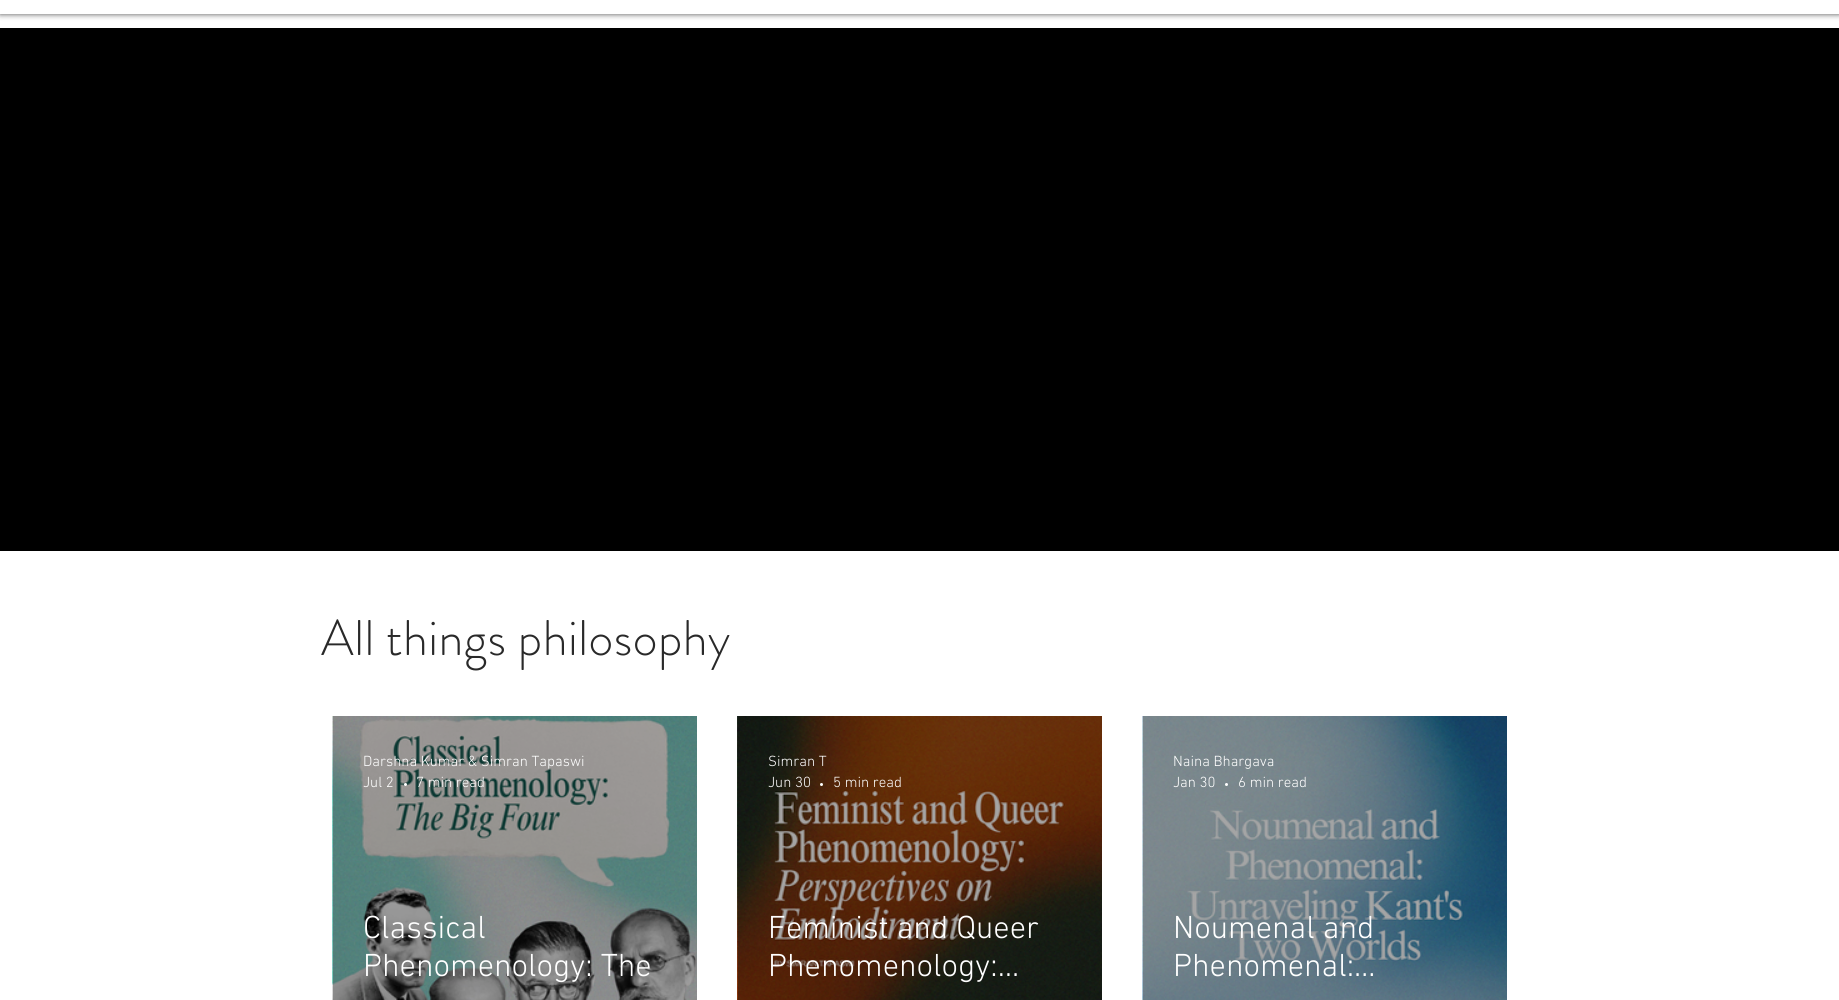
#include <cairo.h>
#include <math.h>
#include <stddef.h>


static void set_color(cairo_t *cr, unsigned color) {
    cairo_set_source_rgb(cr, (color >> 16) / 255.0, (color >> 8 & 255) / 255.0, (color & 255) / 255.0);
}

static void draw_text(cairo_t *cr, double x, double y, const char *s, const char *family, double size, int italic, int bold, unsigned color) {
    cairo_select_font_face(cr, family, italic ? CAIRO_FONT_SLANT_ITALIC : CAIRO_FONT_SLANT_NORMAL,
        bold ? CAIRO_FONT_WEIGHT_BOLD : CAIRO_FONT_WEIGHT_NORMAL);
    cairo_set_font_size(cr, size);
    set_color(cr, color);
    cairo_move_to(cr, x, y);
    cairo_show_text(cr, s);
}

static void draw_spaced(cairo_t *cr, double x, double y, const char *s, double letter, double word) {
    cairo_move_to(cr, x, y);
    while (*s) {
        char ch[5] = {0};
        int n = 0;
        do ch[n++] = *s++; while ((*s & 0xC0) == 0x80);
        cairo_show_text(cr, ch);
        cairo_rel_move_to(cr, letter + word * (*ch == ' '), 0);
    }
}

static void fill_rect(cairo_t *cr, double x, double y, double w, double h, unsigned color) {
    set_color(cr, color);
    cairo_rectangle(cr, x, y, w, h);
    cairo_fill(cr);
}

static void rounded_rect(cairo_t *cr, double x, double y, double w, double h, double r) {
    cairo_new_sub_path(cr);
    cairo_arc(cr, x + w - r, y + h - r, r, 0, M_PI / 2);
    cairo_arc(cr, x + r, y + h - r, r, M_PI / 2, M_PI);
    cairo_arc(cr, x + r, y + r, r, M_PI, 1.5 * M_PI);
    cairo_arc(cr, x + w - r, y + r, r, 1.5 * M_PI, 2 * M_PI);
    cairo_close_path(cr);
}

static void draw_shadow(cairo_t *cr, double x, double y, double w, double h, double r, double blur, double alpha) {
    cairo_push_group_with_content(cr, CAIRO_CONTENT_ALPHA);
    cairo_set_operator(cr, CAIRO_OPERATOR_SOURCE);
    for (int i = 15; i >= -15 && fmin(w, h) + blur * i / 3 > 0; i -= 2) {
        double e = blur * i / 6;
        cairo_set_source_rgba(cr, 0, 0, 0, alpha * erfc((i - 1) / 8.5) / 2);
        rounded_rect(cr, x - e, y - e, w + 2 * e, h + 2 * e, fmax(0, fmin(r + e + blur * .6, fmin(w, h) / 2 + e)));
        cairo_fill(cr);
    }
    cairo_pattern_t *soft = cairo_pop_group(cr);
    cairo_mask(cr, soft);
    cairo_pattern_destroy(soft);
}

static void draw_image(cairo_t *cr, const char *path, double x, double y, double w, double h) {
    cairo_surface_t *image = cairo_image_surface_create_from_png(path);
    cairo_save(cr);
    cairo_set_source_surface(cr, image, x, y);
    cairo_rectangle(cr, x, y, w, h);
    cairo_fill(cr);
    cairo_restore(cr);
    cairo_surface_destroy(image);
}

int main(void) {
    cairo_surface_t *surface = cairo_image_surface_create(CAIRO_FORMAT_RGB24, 1839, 1000);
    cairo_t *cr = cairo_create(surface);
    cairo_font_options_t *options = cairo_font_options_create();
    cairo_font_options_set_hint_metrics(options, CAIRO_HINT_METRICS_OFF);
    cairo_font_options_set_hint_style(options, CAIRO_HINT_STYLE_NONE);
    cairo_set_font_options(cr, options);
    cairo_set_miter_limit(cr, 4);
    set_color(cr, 0xFFFFFF);
    cairo_paint(cr);
    set_color(cr, 0x000000);
    draw_shadow(cr, 0, -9, 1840, 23, 0, 3, 0.7);
    fill_rect(cr, 0, 0, 1839, 14, 0xFFFFFF);
    fill_rect(cr, 0, 28, 1839, 523, 0x000000);
    cairo_select_font_face(cr, "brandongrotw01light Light", CAIRO_FONT_SLANT_NORMAL, CAIRO_FONT_WEIGHT_NORMAL);
    cairo_set_font_size(cr, 50);
    set_color(cr, 0x292929);
    draw_spaced(cr, 321, 655, "All things philosophy", 0.5, 0);
    draw_image(cr, "assets/img1.png", 332, 716, 365, 284);
    draw_text(cr, 363, 766, "Darshna Kumar & Simran Tapaswi", "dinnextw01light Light", 15, 0, 0, 0xFFFFFF);
    draw_text(cr, 363, 787, "Jul 2", "dinnextw01light Light", 15, 0, 0, 0xFFFFFF);
    cairo_new_path(cr);
    cairo_arc(cr, 405.5, 784.5, 1.5, 0, 2 * M_PI);
    cairo_fill(cr);
    draw_text(cr, 416, 787, "7 min read", "dinnextw01light Light", 15, 0, 0, 0xFFFFFF);
    draw_text(cr, 363, 938, "Classical", "dinnextw01light Light", 32.5, 0, 0, 0xFFFFFF);
    draw_text(cr, 363, 976, "Phenomenology: The", "dinnextw01light Light", 32.5, 0, 0, 0xFFFFFF);
    draw_image(cr, "assets/img2.png", 737, 716, 365, 284);
    draw_text(cr, 768, 766, "Simran T", "dinnextw01light Light", 15, 0, 0, 0xFFFFFF);
    draw_text(cr, 768, 787, "Jun 30", "dinnextw01light Light", 15, 0, 0, 0xFFFFFF);
    cairo_new_path(cr);
    cairo_arc(cr, 821.5, 784.5, 1.5, 0, 2 * M_PI);
    cairo_fill(cr);
    draw_text(cr, 833, 787, "5 min read", "dinnextw01light Light", 15, 0, 0, 0xFFFFFF);
    draw_text(cr, 768, 938, "Feminist and Queer", "dinnextw01light Light", 32.5, 0, 0, 0xFFFFFF);
    draw_text(cr, 768, 976, "Phenomenology:…", "dinnextw01light Light", 32.5, 0, 0, 0xFFFFFF);
    draw_image(cr, "assets/img3.png", 1142, 716, 365, 284);
    draw_text(cr, 1173, 766, "Naina Bhargava", "dinnextw01light Light", 15, 0, 0, 0xFFFFFF);
    draw_text(cr, 1173, 787, "Jan 30", "dinnextw01light Light", 15, 0, 0, 0xFFFFFF);
    cairo_new_path(cr);
    cairo_arc(cr, 1226.5, 784.5, 1.5, 0, 2 * M_PI);
    cairo_fill(cr);
    draw_text(cr, 1238, 787, "6 min read", "dinnextw01light Light", 15, 0, 0, 0xFFFFFF);
    draw_text(cr, 1173, 938, "Noumenal and", "dinnextw01light Light", 32.5, 0, 0, 0xFFFFFF);
    draw_text(cr, 1173, 976, "Phenomenal:…", "dinnextw01light Light", 32.5, 0, 0, 0xFFFFFF);
    cairo_surface_write_to_png(surface, "output.png");
    cairo_font_options_destroy(options);
    cairo_destroy(cr);
    cairo_surface_destroy(surface);
    return 0;
}
